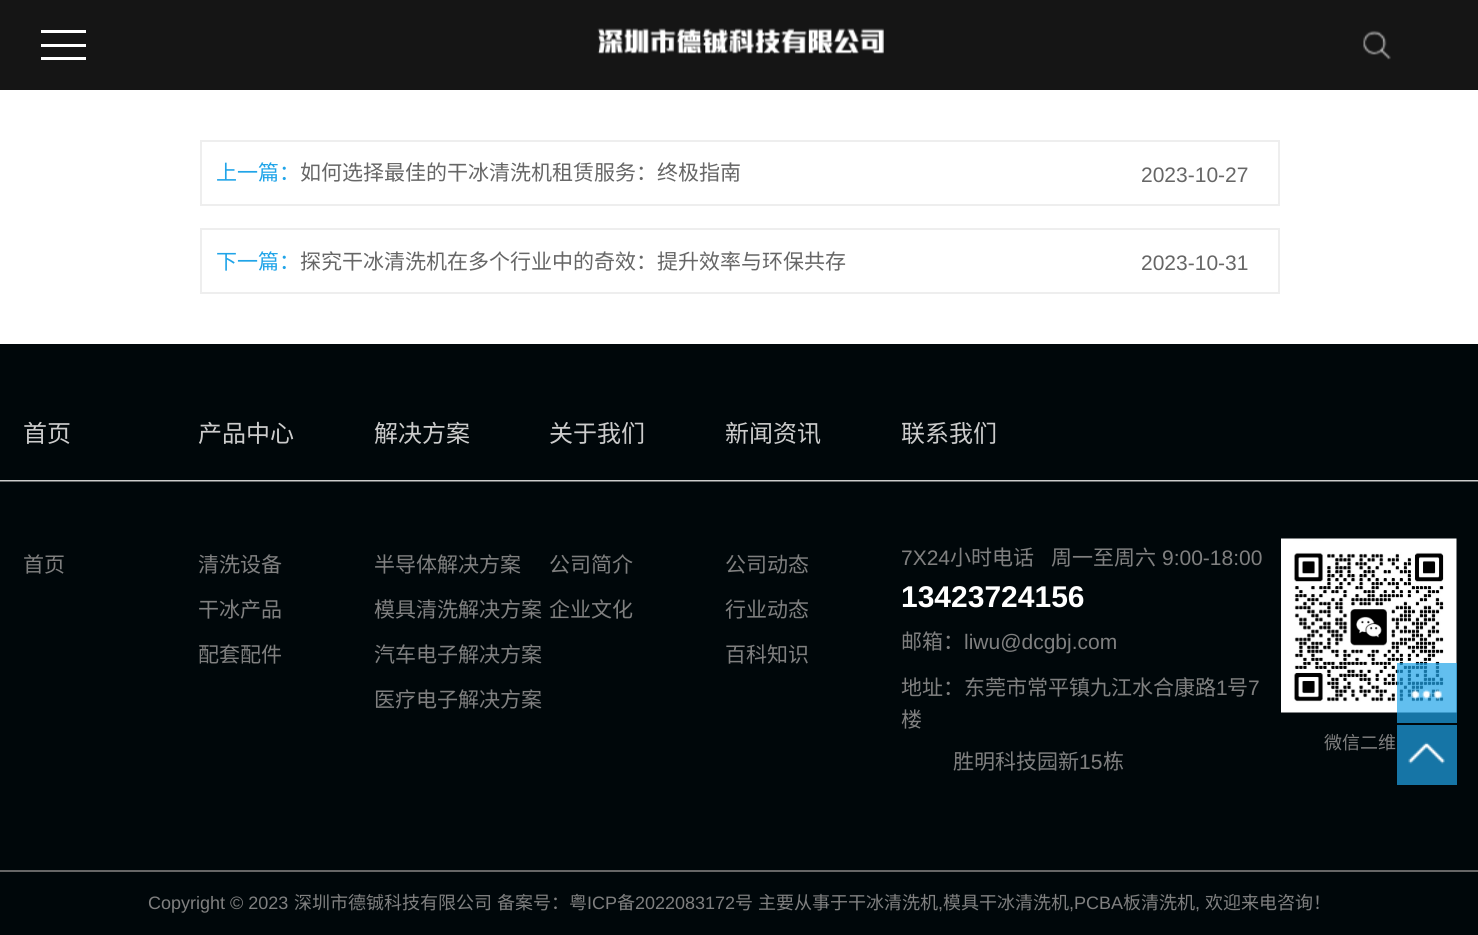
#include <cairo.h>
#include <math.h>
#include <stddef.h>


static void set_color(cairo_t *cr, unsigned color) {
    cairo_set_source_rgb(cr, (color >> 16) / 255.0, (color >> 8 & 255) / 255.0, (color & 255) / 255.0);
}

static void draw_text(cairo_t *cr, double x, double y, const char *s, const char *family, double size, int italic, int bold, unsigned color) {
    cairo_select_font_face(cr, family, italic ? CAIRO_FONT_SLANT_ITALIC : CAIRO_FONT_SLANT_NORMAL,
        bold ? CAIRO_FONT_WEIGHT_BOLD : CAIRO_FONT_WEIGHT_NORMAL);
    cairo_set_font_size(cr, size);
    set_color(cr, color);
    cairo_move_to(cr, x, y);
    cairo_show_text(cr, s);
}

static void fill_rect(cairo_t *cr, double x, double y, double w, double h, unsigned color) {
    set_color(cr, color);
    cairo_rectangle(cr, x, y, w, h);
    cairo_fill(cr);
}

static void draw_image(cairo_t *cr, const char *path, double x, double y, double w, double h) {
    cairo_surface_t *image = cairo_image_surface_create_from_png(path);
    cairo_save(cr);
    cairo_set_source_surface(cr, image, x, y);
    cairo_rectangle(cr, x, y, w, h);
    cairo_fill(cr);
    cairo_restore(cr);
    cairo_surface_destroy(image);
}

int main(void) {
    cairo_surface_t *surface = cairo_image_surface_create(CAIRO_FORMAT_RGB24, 1478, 935);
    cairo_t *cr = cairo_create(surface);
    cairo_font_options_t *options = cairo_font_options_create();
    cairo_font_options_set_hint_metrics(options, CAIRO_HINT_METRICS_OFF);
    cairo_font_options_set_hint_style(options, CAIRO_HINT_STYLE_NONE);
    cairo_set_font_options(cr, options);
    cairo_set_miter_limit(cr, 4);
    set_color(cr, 0xFFFFFF);
    cairo_paint(cr);
    fill_rect(cr, 0, 0, 1478, 90, 0x151515);
    fill_rect(cr, 41, 30, 45, 3, 0xFFFFFF);
    fill_rect(cr, 41, 44, 45, 3, 0xFFFFFF);
    fill_rect(cr, 41, 57, 45, 3, 0xFFFFFF);
    draw_image(cr, "assets/img1.png", 597, 28, 287, 26);
    draw_image(cr, "assets/img2.png", 1363, 30, 28, 30);
    cairo_rectangle(cr, 201, 141, 1078, 64);
    set_color(cr, 0xEEEEEE);
    cairo_stroke(cr);
    draw_text(cr, 216, 180, "上一篇：", "Noto Sans CJK SC", 21, 0, 0, 0x20A4E8);
    draw_text(cr, 300, 180, "如何选择最佳的干冰清洗机租赁服务：终极指南", "Noto Sans CJK SC", 21, 0, 0, 0x666666);
    draw_text(cr, 1141, 182, "2023-10-27", "Liberation Sans", 21, 0, 0, 0x666666);
    cairo_rectangle(cr, 201, 229, 1078, 64);
    set_color(cr, 0xEEEEEE);
    cairo_stroke(cr);
    draw_text(cr, 216, 269, "下一篇：", "Noto Sans CJK SC", 21, 0, 0, 0x20A4E8);
    draw_text(cr, 300, 269, "探究干冰清洗机在多个行业中的奇效：提升效率与环保共存", "Noto Sans CJK SC", 21, 0, 0, 0x666666);
    draw_text(cr, 1141, 270, "2023-10-31", "Liberation Sans", 21, 0, 0, 0x666666);
    fill_rect(cr, 0, 344, 1478, 591, 0x00070A);
    draw_image(cr, "assets/img6.png", 1281, 538, 176, 175);
    cairo_set_source_rgba(cr, 0.125, 0.643, 0.91, 0.7);
    cairo_rectangle(cr, 1397, 663, 60, 60);
    cairo_fill(cr);
    draw_image(cr, "assets/img3.png", 1411, 689, 31, 11);
    cairo_rectangle(cr, 1397, 725, 60, 60);
    cairo_fill(cr);
    draw_image(cr, "assets/img4.png", 1408, 742, 37, 22);
    draw_image(cr, "assets/img5.png", 0, 480, 1478, 2);
    draw_text(cr, 23, 442, "首页", "Noto Sans CJK SC", 24, 0, 0, 0xCCCCCC);
    draw_text(cr, 23, 572, "首页", "Noto Sans CJK SC", 21, 0, 0, 0x808080);
    draw_text(cr, 198, 442, "产品中心", "Noto Sans CJK SC", 24, 0, 0, 0xCCCCCC);
    draw_text(cr, 198, 572, "清洗设备", "Noto Sans CJK SC", 21, 0, 0, 0x808080);
    draw_text(cr, 198, 617, "干冰产品", "Noto Sans CJK SC", 21, 0, 0, 0x808080);
    draw_text(cr, 198, 662, "配套配件", "Noto Sans CJK SC", 21, 0, 0, 0x808080);
    draw_text(cr, 374, 442, "解决方案", "Noto Sans CJK SC", 24, 0, 0, 0xCCCCCC);
    draw_text(cr, 374, 572, "半导体解决方案", "Noto Sans CJK SC", 21, 0, 0, 0x808080);
    draw_text(cr, 374, 617, "模具清洗解决方案", "Noto Sans CJK SC", 21, 0, 0, 0x808080);
    draw_text(cr, 374, 662, "汽车电子解决方案", "Noto Sans CJK SC", 21, 0, 0, 0x808080);
    draw_text(cr, 374, 707, "医疗电子解决方案", "Noto Sans CJK SC", 21, 0, 0, 0x808080);
    draw_text(cr, 549, 442, "关于我们", "Noto Sans CJK SC", 24, 0, 0, 0xCCCCCC);
    draw_text(cr, 549, 572, "公司简介", "Noto Sans CJK SC", 21, 0, 0, 0x808080);
    draw_text(cr, 549, 617, "企业文化", "Noto Sans CJK SC", 21, 0, 0, 0x808080);
    draw_text(cr, 725, 442, "新闻资讯", "Noto Sans CJK SC", 24, 0, 0, 0xCCCCCC);
    draw_text(cr, 725, 572, "公司动态", "Noto Sans CJK SC", 21, 0, 0, 0x808080);
    draw_text(cr, 725, 617, "行业动态", "Noto Sans CJK SC", 21, 0, 0, 0x808080);
    draw_text(cr, 725, 662, "百科知识", "Noto Sans CJK SC", 21, 0, 0, 0x808080);
    draw_text(cr, 901, 442, "联系我们", "Noto Sans CJK SC", 24, 0, 0, 0xCCCCCC);
    draw_text(cr, 901, 565, "7X24", "Liberation Sans", 21, 0, 0, 0x808080);
    draw_text(cr, 950, 565, "小时电话", "Noto Sans CJK SC", 21, 0, 0, 0x808080);
    draw_text(cr, 1051, 565, "周一至周六", "Noto Sans CJK SC", 21, 0, 0, 0x808080);
    draw_text(cr, 1162, 565, "9:00-18:00", "Liberation Sans", 21, 0, 0, 0x808080);
    draw_text(cr, 901, 607, "13423724156", "Liberation Sans", 30, 0, 1, 0xFFFFFF);
    draw_text(cr, 901, 649, "邮箱：", "Noto Sans CJK SC", 21, 0, 0, 0x808080);
    draw_text(cr, 964, 649, "liwu@dcgbj.com", "Liberation Sans", 21, 0, 0, 0x808080);
    draw_text(cr, 901, 695, "地址：东莞市常平镇九江水合康路", "Noto Sans CJK SC", 21, 0, 0, 0x808080);
    draw_text(cr, 1216, 695, "1", "Liberation Sans", 21, 0, 0, 0x808080);
    draw_text(cr, 1227, 695, "号", "Noto Sans CJK SC", 21, 0, 0, 0x808080);
    draw_text(cr, 1248, 695, "7", "Liberation Sans", 21, 0, 0, 0x808080);
    draw_text(cr, 901, 727, "楼", "Noto Sans CJK SC", 21, 0, 0, 0x808080);
    draw_text(cr, 953, 769, "胜明科技园新", "Noto Sans CJK SC", 21, 0, 0, 0x808080);
    draw_text(cr, 1079, 769, "15", "Liberation Sans", 21, 0, 0, 0x808080);
    draw_text(cr, 1103, 769, "栋", "Noto Sans CJK SC", 21, 0, 0, 0x808080);
    draw_text(cr, 1324, 749, "微信二维", "Noto Sans CJK SC", 18, 0, 0, 0x808080);
    fill_rect(cr, 0, 870, 1478, 2, 0x666666);
    draw_text(cr, 148, 909, "Copyright © 2023", "Liberation Sans", 18, 0, 0, 0x808080);
    draw_text(cr, 294, 909, "深圳市德铖科技有限公司", "Noto Sans CJK SC", 18, 0, 0, 0x808080);
    draw_text(cr, 497, 909, "备案号：粤", "Noto Sans CJK SC", 18, 0, 0, 0x808080);
    draw_text(cr, 587, 909, "ICP", "Liberation Sans", 18, 0, 0, 0x808080);
    draw_text(cr, 617, 909, "备", "Noto Sans CJK SC", 18, 0, 0, 0x808080);
    draw_text(cr, 635, 909, "2022083172", "Liberation Sans", 18, 0, 0, 0x808080);
    draw_text(cr, 735, 909, "号", "Noto Sans CJK SC", 18, 0, 0, 0x808080);
    draw_text(cr, 758, 909, "主要从事于干冰清洗机", "Noto Sans CJK SC", 18, 0, 0, 0x808080);
    draw_text(cr, 938, 909, ",", "Liberation Sans", 18, 0, 0, 0x808080);
    draw_text(cr, 943, 909, "模具干冰清洗机", "Noto Sans CJK SC", 18, 0, 0, 0x808080);
    draw_text(cr, 1069, 909, ",PCBA", "Liberation Sans", 18, 0, 0, 0x808080);
    draw_text(cr, 1123, 909, "板清洗机", "Noto Sans CJK SC", 18, 0, 0, 0x808080);
    draw_text(cr, 1195, 909, ",", "Liberation Sans", 18, 0, 0, 0x808080);
    draw_text(cr, 1205, 909, "欢迎来电咨询！", "Noto Sans CJK SC", 18, 0, 0, 0x808080);
    cairo_surface_write_to_png(surface, "output.png");
    cairo_font_options_destroy(options);
    cairo_destroy(cr);
    cairo_surface_destroy(surface);
    return 0;
}
